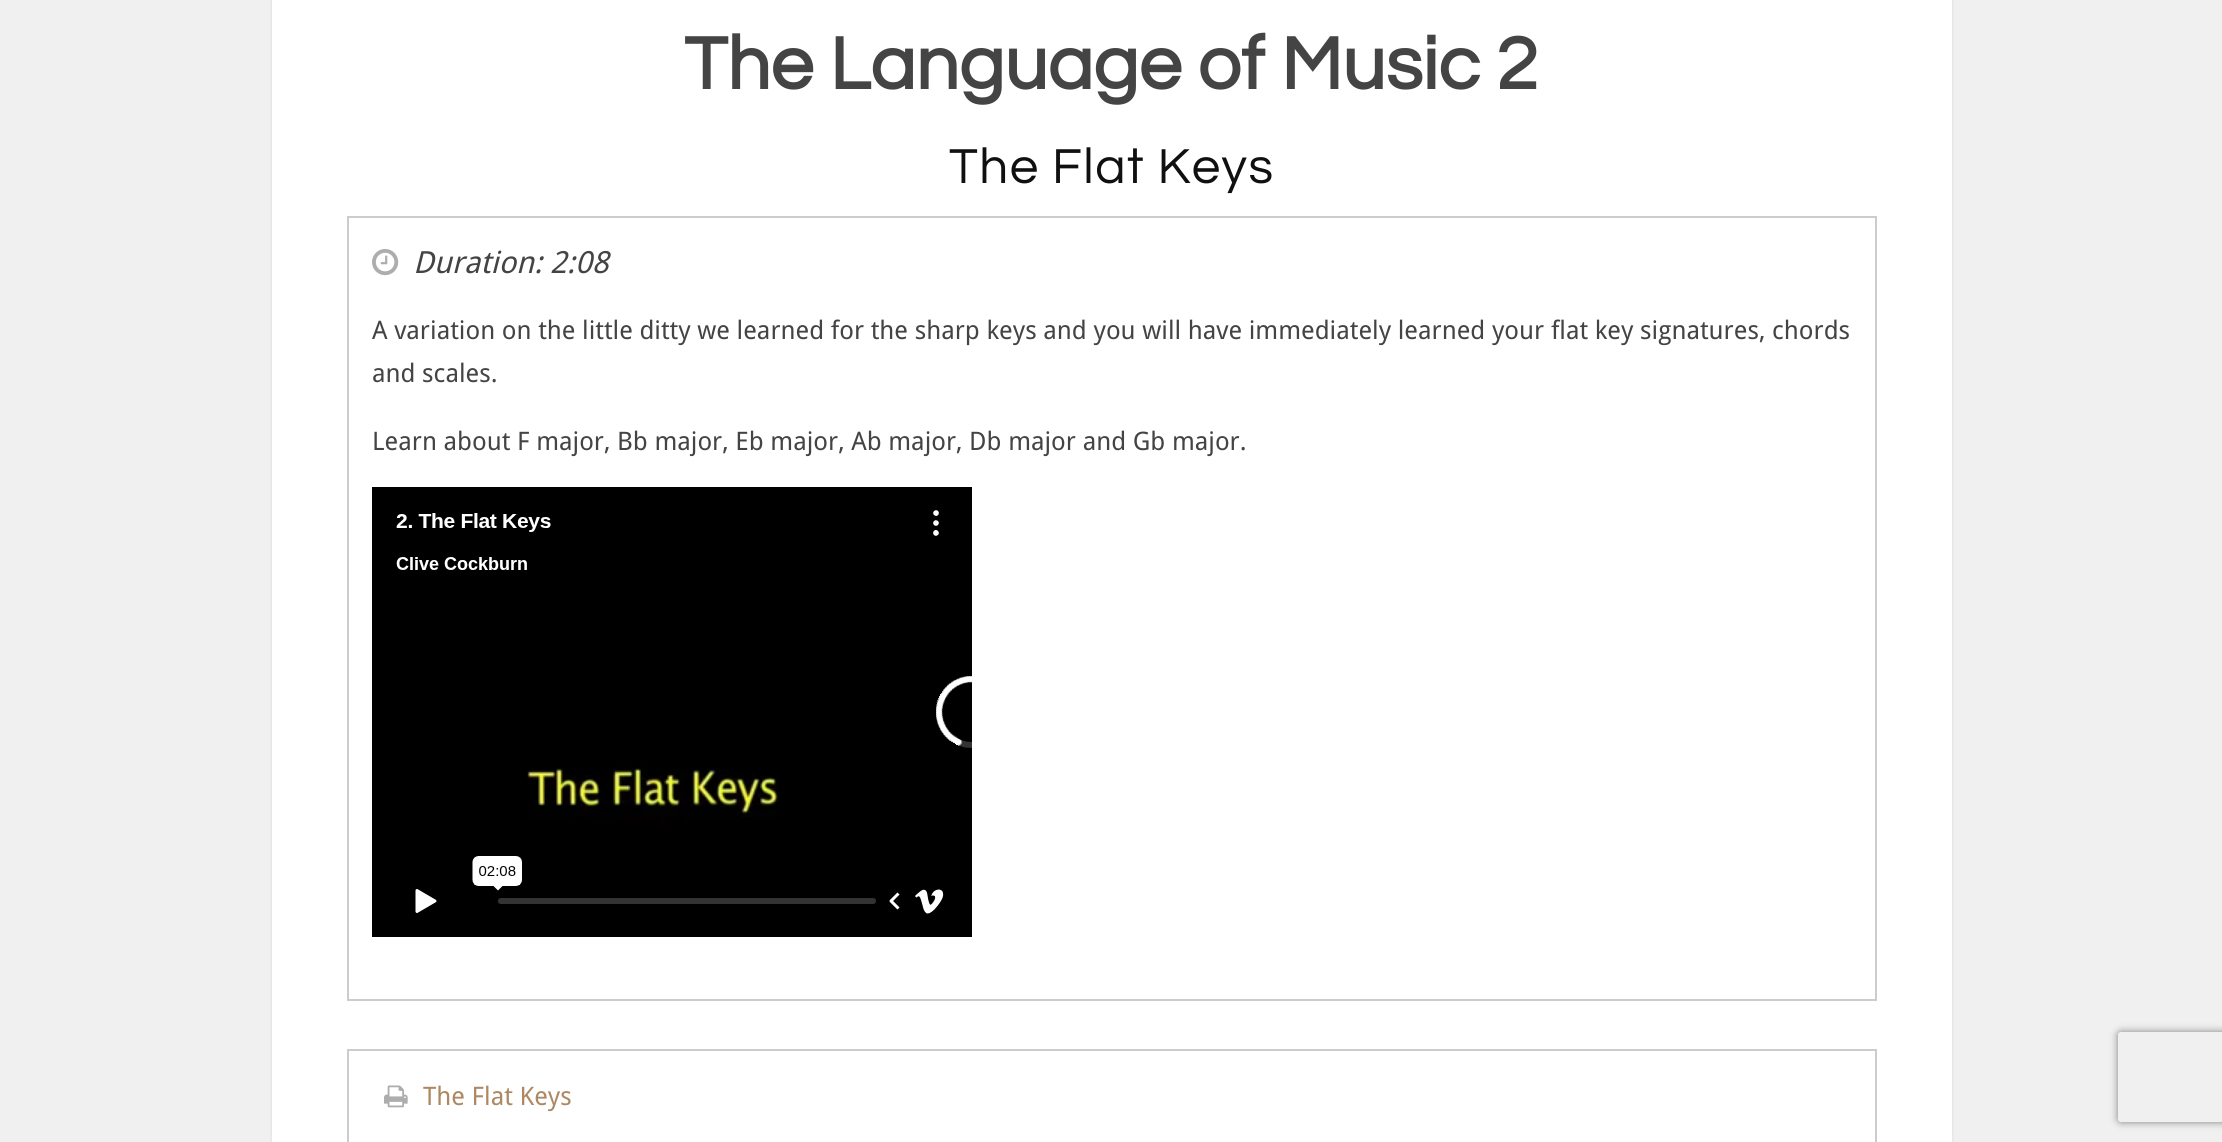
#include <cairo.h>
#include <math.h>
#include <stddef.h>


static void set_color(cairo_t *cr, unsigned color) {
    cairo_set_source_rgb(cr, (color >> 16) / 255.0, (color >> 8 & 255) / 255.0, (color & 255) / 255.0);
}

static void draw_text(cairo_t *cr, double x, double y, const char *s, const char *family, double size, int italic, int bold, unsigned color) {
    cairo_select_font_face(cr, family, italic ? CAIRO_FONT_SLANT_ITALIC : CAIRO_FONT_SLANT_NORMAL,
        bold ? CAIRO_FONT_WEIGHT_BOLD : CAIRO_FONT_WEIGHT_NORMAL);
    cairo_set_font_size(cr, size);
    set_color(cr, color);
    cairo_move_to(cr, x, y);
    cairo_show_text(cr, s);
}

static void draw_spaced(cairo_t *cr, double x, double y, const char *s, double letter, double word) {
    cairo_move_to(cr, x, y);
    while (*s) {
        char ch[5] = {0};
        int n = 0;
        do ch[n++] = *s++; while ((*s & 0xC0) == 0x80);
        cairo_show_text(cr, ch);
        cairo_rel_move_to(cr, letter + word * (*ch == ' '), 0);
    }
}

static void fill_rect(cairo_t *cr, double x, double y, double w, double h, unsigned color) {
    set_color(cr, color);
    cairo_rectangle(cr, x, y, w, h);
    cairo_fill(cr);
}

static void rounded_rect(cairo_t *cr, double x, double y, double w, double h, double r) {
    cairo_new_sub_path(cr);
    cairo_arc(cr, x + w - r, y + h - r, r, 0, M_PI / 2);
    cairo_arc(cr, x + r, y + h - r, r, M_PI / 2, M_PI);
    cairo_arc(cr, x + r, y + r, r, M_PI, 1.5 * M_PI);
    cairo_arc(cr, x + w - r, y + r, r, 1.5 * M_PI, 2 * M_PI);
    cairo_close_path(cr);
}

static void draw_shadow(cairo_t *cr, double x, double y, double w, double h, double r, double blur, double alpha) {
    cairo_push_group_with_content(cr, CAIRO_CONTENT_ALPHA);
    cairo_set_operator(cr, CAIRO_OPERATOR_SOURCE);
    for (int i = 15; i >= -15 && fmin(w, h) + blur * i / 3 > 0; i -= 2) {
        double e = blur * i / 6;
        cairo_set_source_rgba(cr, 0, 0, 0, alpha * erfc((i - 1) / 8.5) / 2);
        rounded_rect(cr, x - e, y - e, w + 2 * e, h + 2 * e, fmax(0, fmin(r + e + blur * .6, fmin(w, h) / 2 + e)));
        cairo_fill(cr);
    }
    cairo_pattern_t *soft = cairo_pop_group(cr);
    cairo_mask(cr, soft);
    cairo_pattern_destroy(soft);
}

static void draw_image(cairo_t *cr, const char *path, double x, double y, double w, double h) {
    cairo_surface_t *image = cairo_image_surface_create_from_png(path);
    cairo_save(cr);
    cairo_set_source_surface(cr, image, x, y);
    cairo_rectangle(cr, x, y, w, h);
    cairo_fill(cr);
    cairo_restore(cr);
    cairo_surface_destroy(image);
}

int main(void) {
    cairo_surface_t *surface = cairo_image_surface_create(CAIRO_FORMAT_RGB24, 2222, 1142);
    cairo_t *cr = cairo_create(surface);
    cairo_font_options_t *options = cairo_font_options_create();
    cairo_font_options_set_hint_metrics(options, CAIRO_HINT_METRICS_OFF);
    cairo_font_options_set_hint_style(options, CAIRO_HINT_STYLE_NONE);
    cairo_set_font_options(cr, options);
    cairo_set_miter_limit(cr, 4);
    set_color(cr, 0xF0F0F0);
    cairo_paint(cr);
    set_color(cr, 0x000000);
    draw_shadow(cr, 272, -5, 1680, 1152, 0, 1.5, 0.1);
    fill_rect(cr, 272, 0, 1680, 1142, 0xFFFFFF);
    draw_text(cr, 684, 89, "The Language of Music 2", "Questrial", 76.5, 0, 1, 0x444444);
    cairo_select_font_face(cr, "Questrial", CAIRO_FONT_SLANT_NORMAL, CAIRO_FONT_WEIGHT_NORMAL);
    cairo_set_font_size(cr, 51);
    set_color(cr, 0x101010);
    draw_spaced(cr, 949, 183, "The Flat Keys", 1.5, 0);
    cairo_rectangle(cr, 348, 217, 1528, 783);
    set_color(cr, 0xCCCCCC);
    cairo_stroke(cr);
    draw_image(cr, "assets/img1.png", 372, 249, 27, 27);
    draw_text(cr, 413, 273, "Duration: 2:08", "Droid Sans", 30.5, 1, 0, 0x444444);
    draw_text(cr, 372, 339, "A variation on the little ditty we learned for the sharp keys and you will have immediately learned your flat key signatures, chords", "Droid Sans", 25.5, 0, 0, 0x444444);
    draw_text(cr, 372, 382, "and scales.", "Droid Sans", 25.5, 0, 0, 0x444444);
    draw_text(cr, 372, 450, "Learn about F major, Bb major, Eb major, Ab major, Db major and Gb major.", "Droid Sans", 25.5, 0, 0, 0x444444);
    draw_image(cr, "assets/img2.png", 372, 487, 600, 450);
    cairo_rectangle(cr, 348, 1050, 1528, 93);
    set_color(cr, 0xCCCCCC);
    cairo_stroke(cr);
    draw_image(cr, "assets/img3.png", 384, 1085, 24, 23);
    draw_text(cr, 423, 1105, "The Flat Keys", "Droid Sans", 25.5, 0, 0, 0xAD8862);
    cairo_save(cr);
    cairo_set_fill_rule(cr, CAIRO_FILL_RULE_EVEN_ODD);
    cairo_new_path(cr);
    cairo_move_to(cr, 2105, 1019);
    cairo_line_to(cr, 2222, 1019);
    cairo_line_to(cr, 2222, 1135);
    cairo_line_to(cr, 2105, 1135);
    cairo_close_path(cr);
    cairo_move_to(cr, 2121, 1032);
    cairo_line_to(cr, 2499, 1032);
    cairo_curve_to(cr, 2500.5, 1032, 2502, 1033.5, 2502, 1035);
    cairo_line_to(cr, 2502, 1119);
    cairo_curve_to(cr, 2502, 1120.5, 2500.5, 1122, 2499, 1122);
    cairo_line_to(cr, 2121, 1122);
    cairo_curve_to(cr, 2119.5, 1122, 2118, 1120.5, 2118, 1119);
    cairo_line_to(cr, 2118, 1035);
    cairo_curve_to(cr, 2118, 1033.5, 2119.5, 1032, 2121, 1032);
    cairo_close_path(cr);
    cairo_clip(cr);
    set_color(cr, 0x808080);
    draw_shadow(cr, 2118, 1032, 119, 90, 3, 4, 1);
    cairo_restore(cr);
    cairo_surface_write_to_png(surface, "output.png");
    cairo_font_options_destroy(options);
    cairo_destroy(cr);
    cairo_surface_destroy(surface);
    return 0;
}
